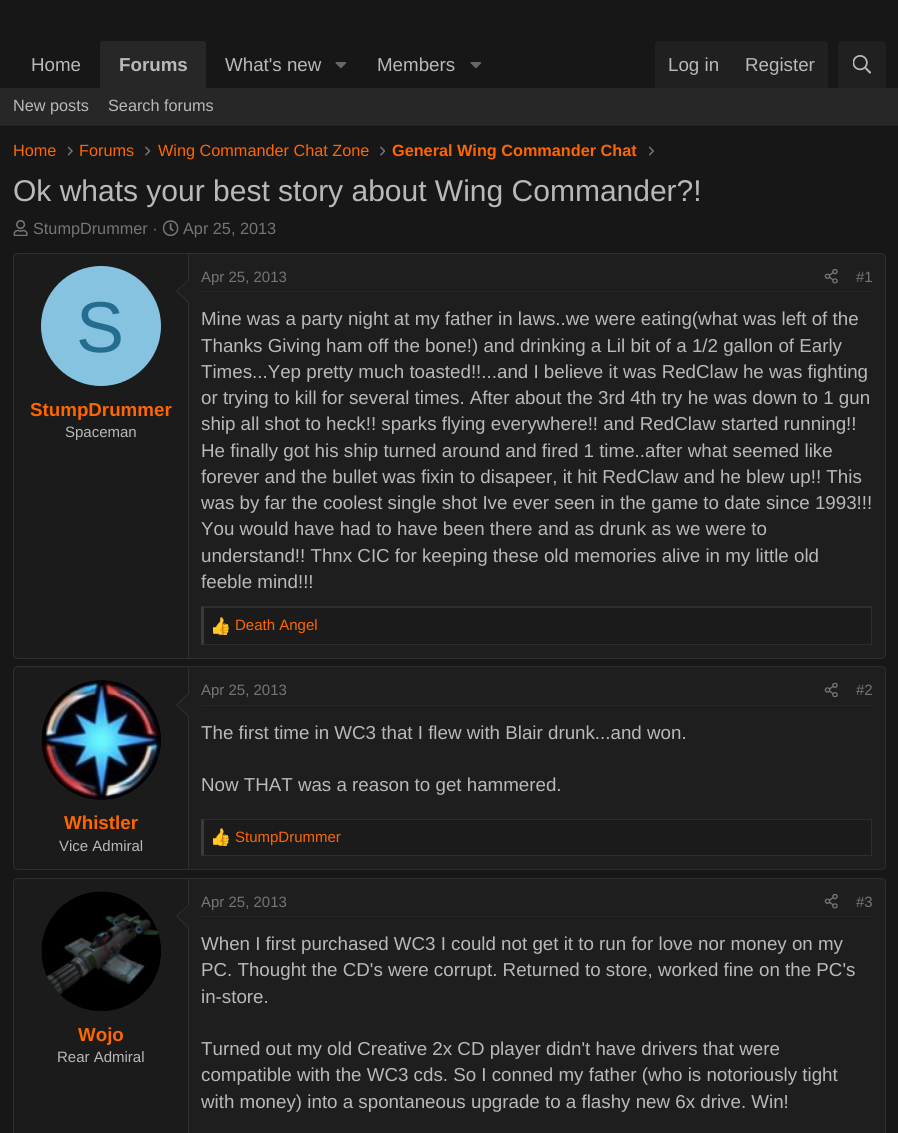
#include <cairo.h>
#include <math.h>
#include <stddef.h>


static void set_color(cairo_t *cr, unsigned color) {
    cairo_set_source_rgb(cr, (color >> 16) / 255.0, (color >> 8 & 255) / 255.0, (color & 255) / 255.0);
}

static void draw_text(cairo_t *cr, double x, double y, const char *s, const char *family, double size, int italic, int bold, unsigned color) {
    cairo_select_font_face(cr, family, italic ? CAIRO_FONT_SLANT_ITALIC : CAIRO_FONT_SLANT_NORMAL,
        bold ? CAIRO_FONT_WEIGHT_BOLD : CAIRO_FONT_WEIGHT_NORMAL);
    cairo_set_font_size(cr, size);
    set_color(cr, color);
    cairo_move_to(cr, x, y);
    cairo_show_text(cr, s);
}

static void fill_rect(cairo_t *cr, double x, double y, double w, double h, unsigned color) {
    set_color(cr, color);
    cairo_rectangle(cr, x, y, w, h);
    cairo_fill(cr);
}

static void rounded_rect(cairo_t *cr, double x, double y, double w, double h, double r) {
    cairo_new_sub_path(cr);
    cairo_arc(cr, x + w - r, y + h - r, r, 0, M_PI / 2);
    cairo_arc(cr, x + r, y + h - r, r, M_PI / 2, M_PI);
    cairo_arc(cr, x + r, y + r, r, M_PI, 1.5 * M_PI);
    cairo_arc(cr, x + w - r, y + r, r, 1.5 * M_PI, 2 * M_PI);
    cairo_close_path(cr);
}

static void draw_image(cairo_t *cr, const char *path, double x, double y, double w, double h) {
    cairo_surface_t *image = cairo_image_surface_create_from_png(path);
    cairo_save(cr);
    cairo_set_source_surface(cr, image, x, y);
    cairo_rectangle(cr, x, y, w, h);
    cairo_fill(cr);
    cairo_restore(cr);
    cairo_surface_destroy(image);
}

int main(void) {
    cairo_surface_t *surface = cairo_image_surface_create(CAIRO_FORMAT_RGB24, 898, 1133);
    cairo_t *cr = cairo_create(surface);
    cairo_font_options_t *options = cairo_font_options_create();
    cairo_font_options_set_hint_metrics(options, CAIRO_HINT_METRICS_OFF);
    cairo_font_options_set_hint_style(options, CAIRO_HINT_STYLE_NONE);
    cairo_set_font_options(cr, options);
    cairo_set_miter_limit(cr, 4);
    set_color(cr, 0x171717);
    cairo_paint(cr);
    draw_text(cr, 31, 71, "Home", "Liberation Sans", 18.75, 0, 0, 0xBAB8B8);
    set_color(cr, 0x282727);
    cairo_new_path(cr);
    cairo_move_to(cr, 102.5, 41);
    cairo_line_to(cr, 203.5, 41);
    cairo_curve_to(cr, 205, 41, 206, 42, 206, 43.5);
    cairo_line_to(cr, 206, 88);
    cairo_line_to(cr, 100, 88);
    cairo_line_to(cr, 100, 43.5);
    cairo_curve_to(cr, 100, 42, 101, 41, 102.5, 41);
    cairo_close_path(cr);
    cairo_fill(cr);
    draw_text(cr, 119, 71, "Forums", "Liberation Sans", 18.75, 0, 1, 0xBAB8B8);
    draw_text(cr, 225, 71, "What's new", "Liberation Sans", 18.75, 0, 0, 0xBAB8B8);
    draw_image(cr, "assets/img1.png", 335, 62, 12, 7);
    draw_text(cr, 377, 71, "Members", "Liberation Sans", 18.75, 0, 0, 0xBAB8B8);
    draw_image(cr, "assets/img2.png", 470, 62, 11, 7);
    set_color(cr, 0x212020);
    cairo_new_path(cr);
    cairo_move_to(cr, 660, 41);
    cairo_line_to(cr, 823, 41);
    cairo_curve_to(cr, 826, 41, 828, 43, 828, 46);
    cairo_line_to(cr, 828, 88);
    cairo_line_to(cr, 655, 88);
    cairo_line_to(cr, 655, 46);
    cairo_curve_to(cr, 655, 43, 657, 41, 660, 41);
    cairo_close_path(cr);
    cairo_fill(cr);
    draw_text(cr, 668, 71, "Log in", "Liberation Sans", 18.75, 0, 0, 0xBAB8B8);
    draw_text(cr, 745, 71, "Register", "Liberation Sans", 18.75, 0, 0, 0xBAB8B8);
    set_color(cr, 0x212020);
    cairo_new_path(cr);
    cairo_move_to(cr, 843, 41);
    cairo_line_to(cr, 881, 41);
    cairo_curve_to(cr, 884, 41, 886, 43, 886, 46);
    cairo_line_to(cr, 886, 88);
    cairo_line_to(cr, 838, 88);
    cairo_line_to(cr, 838, 46);
    cairo_curve_to(cr, 838, 43, 840, 41, 843, 41);
    cairo_close_path(cr);
    cairo_fill(cr);
    draw_image(cr, "assets/img3.png", 853, 55, 18, 19);
    fill_rect(cr, 0, 88, 898, 37, 0x282727);
    fill_rect(cr, 0, 125, 898, 1, 0x212020);
    draw_text(cr, 13, 111, "New posts", "Liberation Sans", 16.25, 0, 0, 0xBAB8B8);
    draw_text(cr, 108, 111, "Search forums", "Liberation Sans", 16.25, 0, 0, 0xBAB8B8);
    draw_text(cr, 13, 156, "Home", "Liberation Sans", 16.25, 0, 0, 0xFF6600);
    draw_image(cr, "assets/img4.png", 68, 146, 5, 10);
    draw_text(cr, 79, 156, "Forums", "Liberation Sans", 16.25, 0, 0, 0xFF6600);
    draw_image(cr, "assets/img5.png", 145, 146, 6, 10);
    draw_text(cr, 158, 156, "Wing Commander Chat Zone", "Liberation Sans", 16.25, 0, 0, 0xFF6600);
    draw_image(cr, "assets/img6.png", 380, 146, 5, 10);
    draw_text(cr, 392, 156, "General Wing Commander Chat", "Liberation Sans", 16.25, 0, 1, 0xFF6600);
    draw_image(cr, "assets/img7.png", 649, 146, 5, 10);
    draw_text(cr, 13, 201, "Ok whats your best story about Wing Commander?!", "Liberation Sans", 30, 0, 0, 0xBAB8B8);
    draw_image(cr, "assets/img8.png", 13, 220, 15, 16);
    draw_text(cr, 33, 234, "StumpDrummer ·", "Liberation Sans", 16.25, 0, 0, 0x767474);
    draw_image(cr, "assets/img9.png", 162, 220, 17, 16);
    draw_text(cr, 183, 234, "Apr 25, 2013", "Liberation Sans", 16.25, 0, 0, 0x767474);
    set_color(cr, 0x1F1E1E);
    rounded_rect(cr, 13.5, 253.5, 872, 405, 4.5);
    cairo_fill_preserve(cr);
    set_color(cr, 0x2E2E2E);
    cairo_set_line_width(cr, 1);
    cairo_stroke(cr);
    set_color(cr, 0x1B1B1B);
    cairo_new_path(cr);
    cairo_move_to(cr, 18, 254);
    cairo_line_to(cr, 189, 254);
    cairo_line_to(cr, 189, 658);
    cairo_line_to(cr, 18, 658);
    cairo_curve_to(cr, 16, 658, 14, 656, 14, 654);
    cairo_line_to(cr, 14, 258);
    cairo_curve_to(cr, 14, 256, 16, 254, 18, 254);
    cairo_close_path(cr);
    cairo_fill(cr);
    fill_rect(cr, 188, 254, 1, 404, 0x2E2E2E);
    cairo_new_path(cr);
    cairo_move_to(cr, 189, 279);
    cairo_line_to(cr, 189, 304);
    cairo_line_to(cr, 176, 291);
    cairo_close_path(cr);
    cairo_fill(cr);
    set_color(cr, 0x1F1E1E);
    cairo_new_path(cr);
    cairo_move_to(cr, 189, 280);
    cairo_line_to(cr, 189, 302.5);
    cairo_line_to(cr, 177.5, 291);
    cairo_close_path(cr);
    cairo_fill(cr);
    set_color(cr, 0x85C3E0);
    cairo_arc(cr, 101, 326, 60, 0, 2 * M_PI);
    cairo_fill(cr);
    draw_text(cr, 76, 352, "S", "Liberation Sans", 72, 0, 0, 0x246D8F);
    draw_text(cr, 30, 416, "StumpDrummer", "Liberation Sans", 18.75, 0, 1, 0xFF6600);
    draw_text(cr, 65, 437, "Spaceman", "Liberation Sans", 15, 0, 0, 0xBAB8B8);
    fill_rect(cr, 201, 291, 672, 1, 0x282727);
    draw_text(cr, 201, 282, "Apr 25, 2013", "Liberation Sans", 15, 0, 0, 0x767474);
    draw_image(cr, "assets/img10.png", 824, 269, 14, 15);
    draw_text(cr, 856, 282, "#1", "Liberation Sans", 15, 0, 0, 0x767474);
    draw_text(cr, 201, 325, "Mine was a party night at my father in laws..we were eating(what was left of the", "Liberation Sans", 18.75, 0, 0, 0xBAB8B8);
    draw_text(cr, 201, 352, "Thanks Giving ham off the bone!) and drinking a Lil bit of a 1/2 gallon of Early", "Liberation Sans", 18.75, 0, 0, 0xBAB8B8);
    draw_text(cr, 201, 378, "Times...Yep pretty much toasted!!...and I believe it was RedClaw he was fighting", "Liberation Sans", 18.75, 0, 0, 0xBAB8B8);
    draw_text(cr, 201, 404, "or trying to kill for several times. After about the 3rd 4th try he was down to 1 gun", "Liberation Sans", 18.75, 0, 0, 0xBAB8B8);
    draw_text(cr, 201, 430, "ship all shot to heck!! sparks flying everywhere!! and RedClaw started running!!", "Liberation Sans", 18.75, 0, 0, 0xBAB8B8);
    draw_text(cr, 201, 457, "He finally got his ship turned around and fired 1 time..after what seemed like", "Liberation Sans", 18.75, 0, 0, 0xBAB8B8);
    draw_text(cr, 201, 483, "forever and the bullet was fixin to disapeer, it hit RedClaw and he blew up!! This", "Liberation Sans", 18.75, 0, 0, 0xBAB8B8);
    draw_text(cr, 201, 509, "was by far the coolest single shot Ive ever seen in the game to date since 1993!!!", "Liberation Sans", 18.75, 0, 0, 0xBAB8B8);
    draw_text(cr, 201, 535, "You would have had to have been there and as drunk as we were to", "Liberation Sans", 18.75, 0, 0, 0xBAB8B8);
    draw_text(cr, 201, 562, "understand!! Thnx CIC for keeping these old memories alive in my little old", "Liberation Sans", 18.75, 0, 0, 0xBAB8B8);
    draw_text(cr, 201, 588, "feeble mind!!!", "Liberation Sans", 18.75, 0, 0, 0xBAB8B8);
    fill_rect(cr, 204, 608, 667, 36, 0x1B1B1B);
    set_color(cr, 0x2E2E2E);
    cairo_new_path(cr);
    cairo_move_to(cr, 201, 606);
    cairo_line_to(cr, 872, 606);
    cairo_line_to(cr, 871, 608);
    cairo_line_to(cr, 204, 608);
    cairo_close_path(cr);
    cairo_fill(cr);
    fill_rect(cr, 871, 606, 1, 39, 0x2E2E2E);
    cairo_new_path(cr);
    cairo_move_to(cr, 872, 645);
    cairo_line_to(cr, 201, 645);
    cairo_line_to(cr, 204, 644);
    cairo_line_to(cr, 871, 644);
    cairo_close_path(cr);
    cairo_fill(cr);
    set_color(cr, 0x3B3B3B);
    cairo_new_path(cr);
    cairo_move_to(cr, 201, 645);
    cairo_line_to(cr, 201, 606);
    cairo_line_to(cr, 204, 607.5);
    cairo_line_to(cr, 204, 644);
    cairo_close_path(cr);
    cairo_fill(cr);
    draw_image(cr, "assets/img11.png", 212, 617, 17, 18);
    draw_text(cr, 235, 630, "Death Angel", "Liberation Sans", 15, 0, 0, 0xFF6600);
    set_color(cr, 0x1F1E1E);
    rounded_rect(cr, 13.5, 666.5, 872, 203, 4.5);
    cairo_fill_preserve(cr);
    set_color(cr, 0x2E2E2E);
    cairo_stroke(cr);
    set_color(cr, 0x1B1B1B);
    cairo_new_path(cr);
    cairo_move_to(cr, 18, 668);
    cairo_line_to(cr, 189, 668);
    cairo_line_to(cr, 189, 869);
    cairo_line_to(cr, 18, 869);
    cairo_curve_to(cr, 16, 869, 14, 867, 14, 865);
    cairo_line_to(cr, 14, 672);
    cairo_curve_to(cr, 14, 670, 16, 668, 18, 668);
    cairo_close_path(cr);
    cairo_fill(cr);
    fill_rect(cr, 188, 668, 1, 201, 0x2E2E2E);
    set_color(cr, 0x1F1E1E);
    cairo_arc(cr, 101, 740, 60, 0, 2 * M_PI);
    cairo_fill(cr);
    draw_image(cr, "assets/img12.png", 41, 680, 120, 120);
    set_color(cr, 0x2E2E2E);
    cairo_new_path(cr);
    cairo_move_to(cr, 189, 692.5);
    cairo_line_to(cr, 189, 717.5);
    cairo_line_to(cr, 176, 705);
    cairo_close_path(cr);
    cairo_fill(cr);
    set_color(cr, 0x1F1E1E);
    cairo_new_path(cr);
    cairo_move_to(cr, 189, 694);
    cairo_line_to(cr, 189, 716);
    cairo_line_to(cr, 177.5, 705);
    cairo_close_path(cr);
    cairo_fill(cr);
    draw_text(cr, 64, 829, "Whistler", "Liberation Sans", 18.75, 0, 1, 0xFF6600);
    draw_text(cr, 59, 851, "Vice Admiral", "Liberation Sans", 15, 0, 0, 0xBAB8B8);
    fill_rect(cr, 201, 705, 672, 1, 0x282727);
    draw_text(cr, 201, 695, "Apr 25, 2013", "Liberation Sans", 15, 0, 0, 0x767474);
    draw_image(cr, "assets/img13.png", 824, 682, 14, 16);
    draw_text(cr, 856, 695, "#2", "Liberation Sans", 15, 0, 0, 0x767474);
    draw_text(cr, 201, 739, "The first time in WC3 that I flew with Blair drunk...and won.", "Liberation Sans", 18.75, 0, 0, 0xBAB8B8);
    draw_text(cr, 201, 791, "Now THAT was a reason to get hammered.", "Liberation Sans", 18.75, 0, 0, 0xBAB8B8);
    fill_rect(cr, 204, 820, 667, 35, 0x1B1B1B);
    set_color(cr, 0x2E2E2E);
    cairo_new_path(cr);
    cairo_move_to(cr, 201, 819);
    cairo_line_to(cr, 872, 819);
    cairo_line_to(cr, 871, 820);
    cairo_line_to(cr, 204, 820);
    cairo_close_path(cr);
    cairo_fill(cr);
    fill_rect(cr, 871, 819, 1, 37, 0x2E2E2E);
    cairo_new_path(cr);
    cairo_move_to(cr, 872, 856);
    cairo_line_to(cr, 201, 856);
    cairo_line_to(cr, 204, 855);
    cairo_line_to(cr, 871, 855);
    cairo_close_path(cr);
    cairo_fill(cr);
    set_color(cr, 0x3B3B3B);
    cairo_new_path(cr);
    cairo_move_to(cr, 201, 856);
    cairo_line_to(cr, 201, 819);
    cairo_line_to(cr, 204, 820);
    cairo_line_to(cr, 204, 855);
    cairo_close_path(cr);
    cairo_fill(cr);
    draw_image(cr, "assets/img11.png", 212, 828, 17, 18);
    draw_text(cr, 235, 842, "StumpDrummer", "Liberation Sans", 15, 0, 0, 0xFF6600);
    set_color(cr, 0x1F1E1E);
    rounded_rect(cr, 13.5, 878.5, 872, 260, 4.5);
    cairo_fill_preserve(cr);
    set_color(cr, 0x2E2E2E);
    cairo_stroke(cr);
    set_color(cr, 0x1B1B1B);
    cairo_new_path(cr);
    cairo_move_to(cr, 18, 879);
    cairo_line_to(cr, 189, 879);
    cairo_line_to(cr, 189, 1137);
    cairo_line_to(cr, 18, 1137);
    cairo_curve_to(cr, 16, 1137, 14, 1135, 14, 1133);
    cairo_line_to(cr, 14, 883);
    cairo_curve_to(cr, 14, 881, 16, 879, 18, 879);
    cairo_close_path(cr);
    cairo_fill(cr);
    fill_rect(cr, 188, 879, 1, 254, 0x2E2E2E);
    set_color(cr, 0x1F1E1E);
    cairo_arc(cr, 101, 951, 60, 0, 2 * M_PI);
    cairo_fill(cr);
    draw_image(cr, "assets/img14.png", 41, 891, 120, 120);
    set_color(cr, 0x2E2E2E);
    cairo_new_path(cr);
    cairo_move_to(cr, 189, 904);
    cairo_line_to(cr, 189, 929);
    cairo_line_to(cr, 176, 916);
    cairo_close_path(cr);
    cairo_fill(cr);
    set_color(cr, 0x1F1E1E);
    cairo_new_path(cr);
    cairo_move_to(cr, 189, 905);
    cairo_line_to(cr, 189, 927.5);
    cairo_line_to(cr, 177.5, 916);
    cairo_close_path(cr);
    cairo_fill(cr);
    draw_text(cr, 78, 1041, "Wojo", "Liberation Sans", 18.75, 0, 1, 0xFF6600);
    draw_text(cr, 57, 1062, "Rear Admiral", "Liberation Sans", 15, 0, 0, 0xBAB8B8);
    fill_rect(cr, 201, 916, 672, 1, 0x282727);
    draw_text(cr, 201, 907, "Apr 25, 2013", "Liberation Sans", 15, 0, 0, 0x767474);
    draw_image(cr, "assets/img10.png", 824, 894, 14, 15);
    draw_text(cr, 856, 907, "#3", "Liberation Sans", 15, 0, 0, 0x767474);
    draw_text(cr, 201, 950, "When I first purchased WC3 I could not get it to run for love nor money on my", "Liberation Sans", 18.75, 0, 0, 0xBAB8B8);
    draw_text(cr, 201, 976, "PC. Thought the CD's were corrupt. Returned to store, worked fine on the PC's", "Liberation Sans", 18.75, 0, 0, 0xBAB8B8);
    draw_text(cr, 201, 1003, "in-store.", "Liberation Sans", 18.75, 0, 0, 0xBAB8B8);
    draw_text(cr, 201, 1055, "Turned out my old Creative 2x CD player didn't have drivers that were", "Liberation Sans", 18.75, 0, 0, 0xBAB8B8);
    draw_text(cr, 201, 1081, "compatible with the WC3 cds. So I conned my father (who is notoriously tight", "Liberation Sans", 18.75, 0, 0, 0xBAB8B8);
    draw_text(cr, 201, 1108, "with money) into a spontaneous upgrade to a flashy new 6x drive. Win!", "Liberation Sans", 18.75, 0, 0, 0xBAB8B8);
    cairo_surface_write_to_png(surface, "output.png");
    cairo_font_options_destroy(options);
    cairo_destroy(cr);
    cairo_surface_destroy(surface);
    return 0;
}
